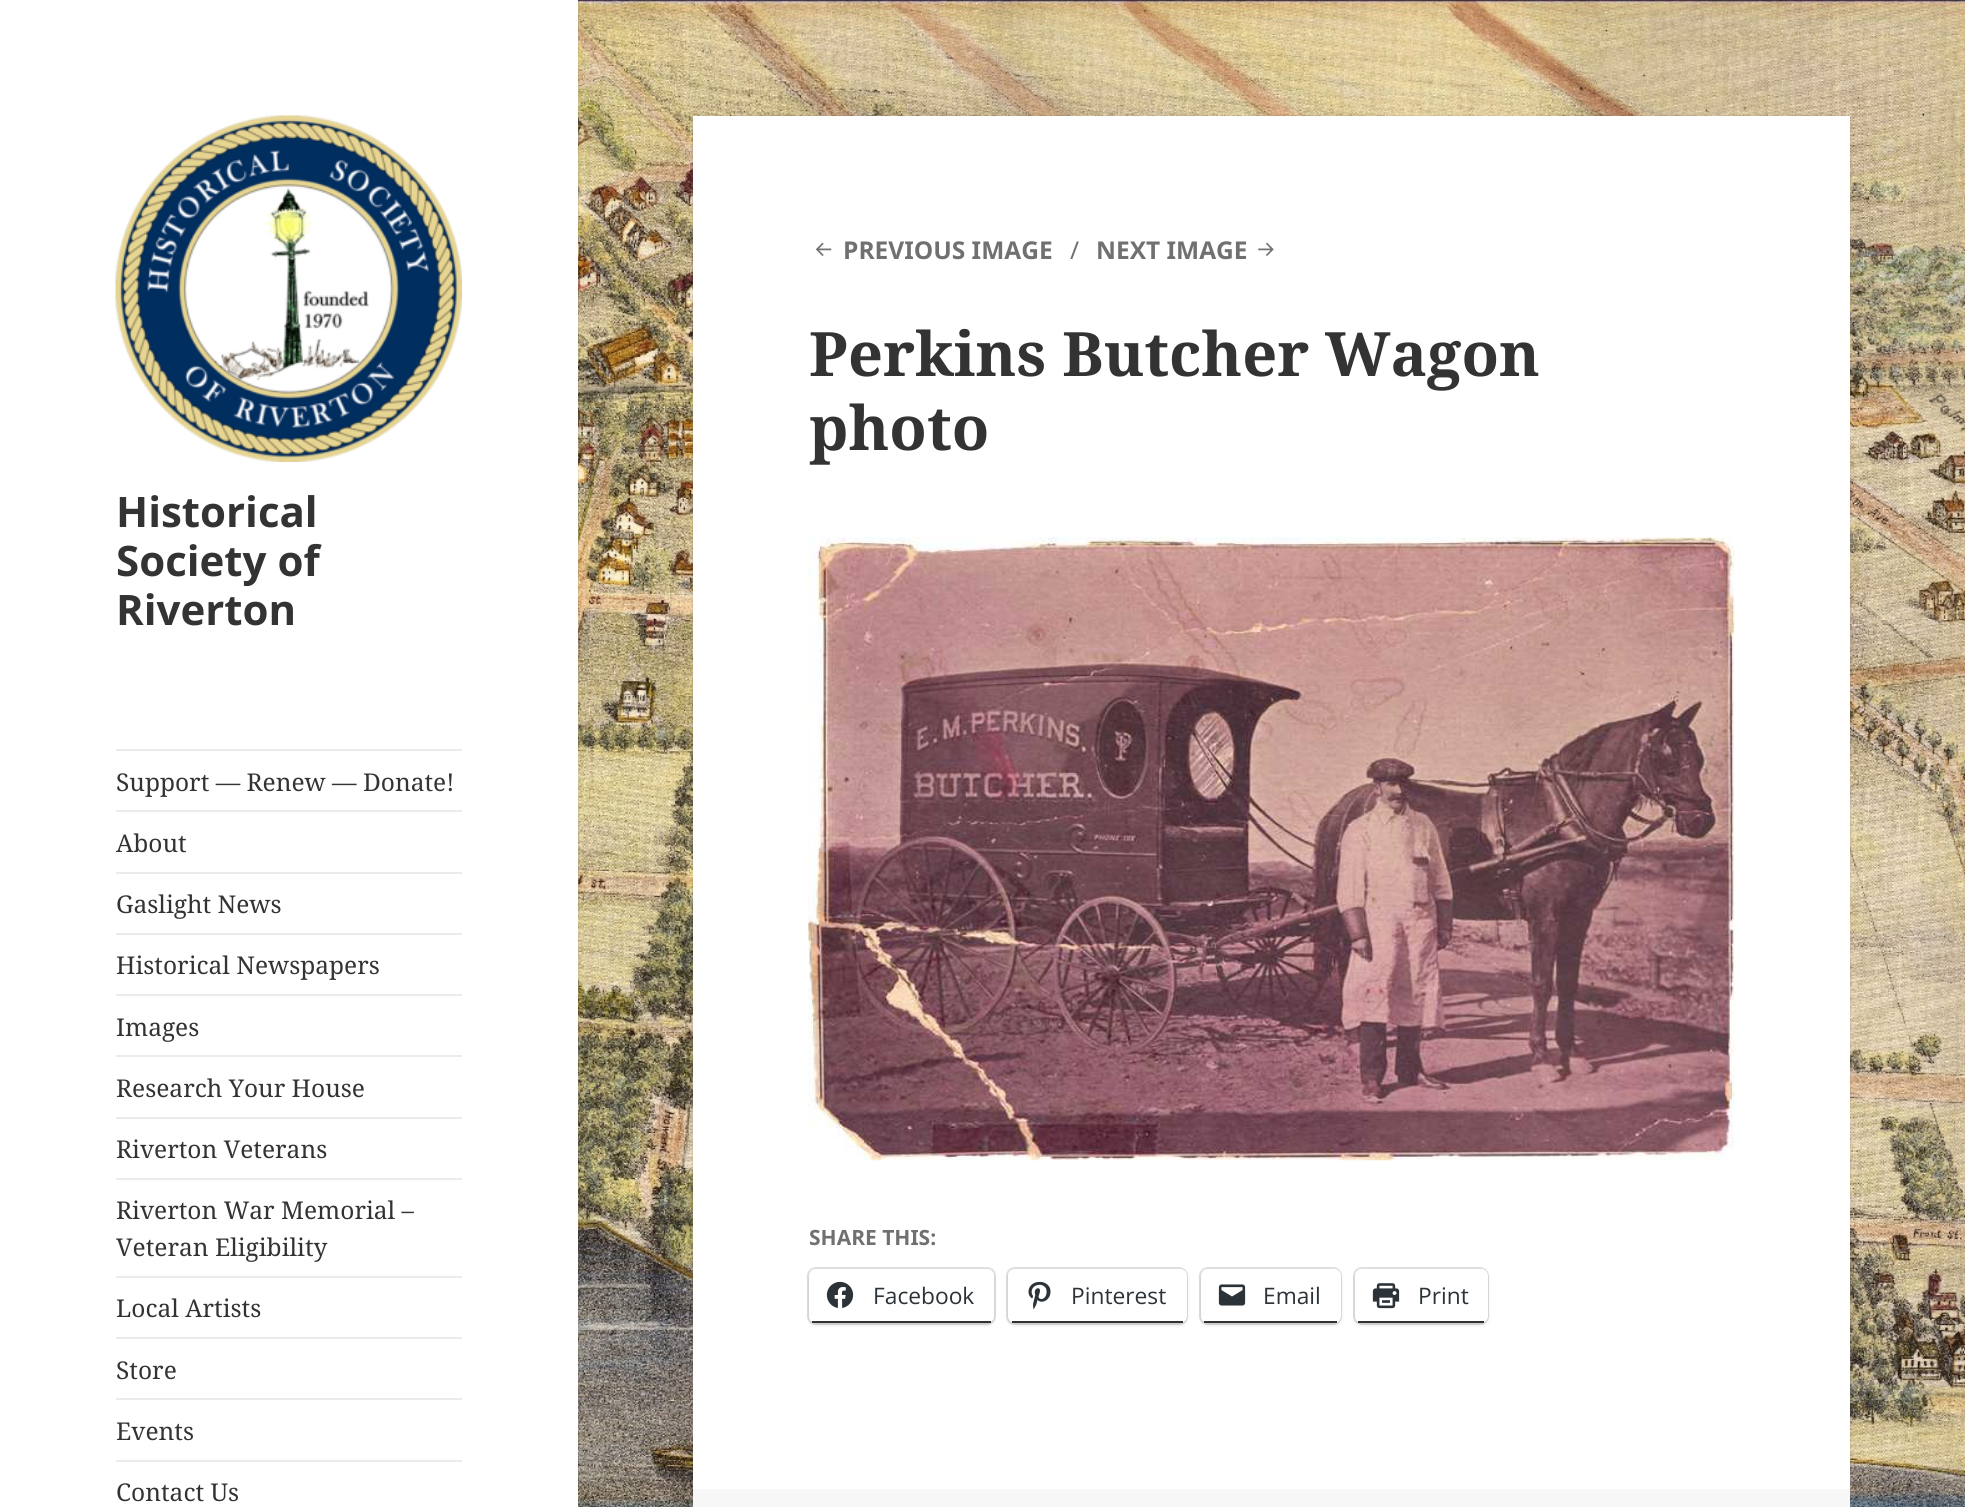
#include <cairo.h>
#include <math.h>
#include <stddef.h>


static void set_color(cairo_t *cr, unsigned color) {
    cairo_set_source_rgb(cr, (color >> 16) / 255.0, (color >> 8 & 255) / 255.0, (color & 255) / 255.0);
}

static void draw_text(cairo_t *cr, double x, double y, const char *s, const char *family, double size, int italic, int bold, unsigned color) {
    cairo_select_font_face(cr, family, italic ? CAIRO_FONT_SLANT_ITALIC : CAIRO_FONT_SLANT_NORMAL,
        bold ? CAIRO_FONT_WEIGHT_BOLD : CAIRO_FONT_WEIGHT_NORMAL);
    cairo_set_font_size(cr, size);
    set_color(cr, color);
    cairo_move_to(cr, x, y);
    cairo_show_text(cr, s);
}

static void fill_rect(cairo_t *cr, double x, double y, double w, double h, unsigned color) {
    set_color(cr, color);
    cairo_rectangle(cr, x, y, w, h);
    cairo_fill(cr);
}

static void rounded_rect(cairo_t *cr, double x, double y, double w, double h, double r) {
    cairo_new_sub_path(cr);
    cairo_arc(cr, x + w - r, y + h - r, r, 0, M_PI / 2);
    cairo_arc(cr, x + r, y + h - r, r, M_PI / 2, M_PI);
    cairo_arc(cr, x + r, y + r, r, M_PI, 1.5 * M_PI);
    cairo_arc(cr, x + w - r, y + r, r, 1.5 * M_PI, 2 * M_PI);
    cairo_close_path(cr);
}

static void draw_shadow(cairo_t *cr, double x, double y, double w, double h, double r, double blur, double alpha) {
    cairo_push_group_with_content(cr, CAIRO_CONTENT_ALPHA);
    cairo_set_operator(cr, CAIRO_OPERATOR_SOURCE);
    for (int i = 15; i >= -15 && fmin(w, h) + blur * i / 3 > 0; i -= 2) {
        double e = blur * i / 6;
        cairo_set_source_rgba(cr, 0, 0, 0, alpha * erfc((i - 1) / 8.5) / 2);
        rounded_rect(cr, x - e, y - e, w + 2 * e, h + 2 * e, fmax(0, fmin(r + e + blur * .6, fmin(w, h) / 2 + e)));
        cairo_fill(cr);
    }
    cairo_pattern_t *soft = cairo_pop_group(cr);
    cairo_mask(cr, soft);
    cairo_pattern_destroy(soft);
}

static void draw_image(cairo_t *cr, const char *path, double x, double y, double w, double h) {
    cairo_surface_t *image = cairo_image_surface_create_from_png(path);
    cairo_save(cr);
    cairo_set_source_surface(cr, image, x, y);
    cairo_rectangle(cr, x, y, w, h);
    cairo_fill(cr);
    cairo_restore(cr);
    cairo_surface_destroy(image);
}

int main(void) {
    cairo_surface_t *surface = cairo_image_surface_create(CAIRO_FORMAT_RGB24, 1965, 1507);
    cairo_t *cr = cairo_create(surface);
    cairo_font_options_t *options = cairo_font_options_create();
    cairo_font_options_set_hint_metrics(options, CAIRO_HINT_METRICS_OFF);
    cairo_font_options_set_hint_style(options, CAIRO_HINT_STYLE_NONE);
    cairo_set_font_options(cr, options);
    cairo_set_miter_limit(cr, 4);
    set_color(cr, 0xFFFFFF);
    cairo_paint(cr);
    draw_image(cr, "assets/img1.png", 578, 0, 1387, 1507);
    set_color(cr, 0x000000);
    draw_shadow(cr, 0, 0, 578, 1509, 0, 1, 0.15);
    fill_rect(cr, 0, 0, 578, 1507, 0xFFFFFF);
    draw_image(cr, "assets/img2.png", 115, 115, 347, 347);
    draw_text(cr, 116, 527, "Historical", "Noto Sans", 42, 0, 1, 0x333333);
    draw_text(cr, 116, 576, "Society of", "Noto Sans", 42, 0, 1, 0x333333);
    draw_text(cr, 116, 625, "Riverton", "Noto Sans", 42, 0, 1, 0x333333);
    fill_rect(cr, 116, 749, 346, 2, 0xEBEBEB);
    draw_text(cr, 116, 791, "Support — Renew — Donate!", "Noto Serif", 24.5, 0, 0, 0x333333);
    fill_rect(cr, 116, 810, 346, 2, 0xEBEBEB);
    draw_text(cr, 116, 852, "About", "Noto Serif", 24.5, 0, 0, 0x333333);
    fill_rect(cr, 116, 872, 346, 2, 0xEBEBEB);
    draw_text(cr, 116, 913, "Gaslight News", "Noto Serif", 24.5, 0, 0, 0x333333);
    fill_rect(cr, 116, 933, 346, 2, 0xEBEBEB);
    draw_text(cr, 116, 974, "Historical Newspapers", "Noto Serif", 24.5, 0, 0, 0x333333);
    fill_rect(cr, 116, 994, 346, 2, 0xEBEBEB);
    draw_text(cr, 116, 1036, "Images", "Noto Serif", 24.5, 0, 0, 0x333333);
    fill_rect(cr, 116, 1055, 346, 2, 0xEBEBEB);
    draw_text(cr, 116, 1097, "Research Your House", "Noto Serif", 24.5, 0, 0, 0x333333);
    fill_rect(cr, 116, 1117, 346, 2, 0xEBEBEB);
    draw_text(cr, 116, 1158, "Riverton Veterans", "Noto Serif", 24.5, 0, 0, 0x333333);
    fill_rect(cr, 116, 1178, 346, 2, 0xEBEBEB);
    draw_text(cr, 116, 1219, "Riverton War Memorial –", "Noto Serif", 24.5, 0, 0, 0x333333);
    draw_text(cr, 116, 1256, "Veteran Eligibility", "Noto Serif", 24.5, 0, 0, 0x333333);
    fill_rect(cr, 116, 1276, 346, 2, 0xEBEBEB);
    draw_text(cr, 116, 1317, "Local Artists", "Noto Serif", 24.5, 0, 0, 0x333333);
    fill_rect(cr, 116, 1337, 346, 2, 0xEBEBEB);
    draw_text(cr, 116, 1379, "Store", "Noto Serif", 24.5, 0, 0, 0x333333);
    fill_rect(cr, 116, 1398, 346, 2, 0xEBEBEB);
    draw_text(cr, 116, 1440, "Events", "Noto Serif", 24.5, 0, 0, 0x333333);
    fill_rect(cr, 116, 1460, 346, 2, 0xEBEBEB);
    draw_text(cr, 116, 1501, "Contact Us", "Noto Serif", 24.5, 0, 0, 0x333333);
    set_color(cr, 0x000000);
    draw_shadow(cr, 693, 116, 1157, 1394, 0, 1, 0.15);
    fill_rect(cr, 693, 116, 1157, 1373, 0xFFFFFF);
    draw_image(cr, "assets/img3.png", 815, 242, 17, 14);
    draw_text(cr, 843, 259, "PREVIOUS IMAGE", "Noto Sans", 24.5, 0, 1, 0x707070);
    draw_text(cr, 1070, 259, "∕", "Noto Sans", 24.5, 0, 0, 0x707070);
    draw_text(cr, 1096, 259, "NEXT IMAGE", "Noto Sans", 24.5, 0, 1, 0x707070);
    draw_image(cr, "assets/img4.png", 1258, 242, 16, 14);
    draw_text(cr, 809, 376, "Perkins Butcher Wagon", "Noto Serif", 61.25, 0, 1, 0x333333);
    draw_text(cr, 809, 450, "photo", "Noto Serif", 61.25, 0, 1, 0x333333);
    draw_image(cr, "assets/img5.png", 808, 537, 927, 624);
    draw_text(cr, 809, 1245, "SHARE THIS:", "Noto Sans", 21, 0, 1, 0x707070);
    rounded_rect(cr, 808, 1268, 187, 56, 8);
    set_color(cr, 0xE0E0E0);
    cairo_stroke(cr);
    set_color(cr, 0x000000);
    draw_shadow(cr, 809, 1271, 185, 54, 7, 2, 0.12);
    set_color(cr, 0xFFFFFF);
    rounded_rect(cr, 809, 1269, 185, 54, 7);
    cairo_fill(cr);
    fill_rect(cr, 812, 1321, 179, 2, 0x333333);
    draw_image(cr, "assets/img6.png", 826, 1281, 28, 27);
    draw_text(cr, 873, 1304, "Facebook", "Open Sans", 22.75, 0, 0, 0x2C3338);
    rounded_rect(cr, 1007, 1268, 180, 56, 8);
    set_color(cr, 0xE0E0E0);
    cairo_stroke(cr);
    set_color(cr, 0x000000);
    draw_shadow(cr, 1008, 1271, 179, 54, 7, 2, 0.12);
    set_color(cr, 0xFFFFFF);
    rounded_rect(cr, 1008, 1269, 179, 54, 7);
    cairo_fill(cr);
    fill_rect(cr, 1012, 1321, 171, 2, 0x333333);
    draw_image(cr, "assets/img7.png", 1028, 1281, 23, 28);
    draw_text(cr, 1071, 1304, "Pinterest", "Open Sans", 22.75, 0, 0, 0x2C3338);
    rounded_rect(cr, 1200, 1268, 141, 56, 8);
    set_color(cr, 0xE0E0E0);
    cairo_stroke(cr);
    set_color(cr, 0x000000);
    draw_shadow(cr, 1201, 1271, 140, 54, 7, 2, 0.12);
    set_color(cr, 0xFFFFFF);
    rounded_rect(cr, 1201, 1269, 140, 54, 7);
    cairo_fill(cr);
    fill_rect(cr, 1204, 1321, 133, 2, 0x333333);
    draw_image(cr, "assets/img8.png", 1218, 1284, 28, 22);
    draw_text(cr, 1263, 1304, "Email", "Open Sans", 22.75, 0, 0, 0x2C3338);
    rounded_rect(cr, 1354, 1268, 134, 56, 8);
    set_color(cr, 0xE0E0E0);
    cairo_stroke(cr);
    set_color(cr, 0x000000);
    draw_shadow(cr, 1355, 1271, 133, 54, 7, 2, 0.12);
    set_color(cr, 0xFFFFFF);
    rounded_rect(cr, 1355, 1269, 133, 54, 7);
    cairo_fill(cr);
    fill_rect(cr, 1358, 1321, 126, 2, 0x333333);
    draw_image(cr, "assets/img9.png", 1372, 1283, 28, 26);
    draw_text(cr, 1418, 1304, "Print", "Open Sans", 22.75, 0, 0, 0x2C3338);
    fill_rect(cr, 693, 1489, 1157, 18, 0xF7F7F7);
    cairo_surface_write_to_png(surface, "output.png");
    cairo_font_options_destroy(options);
    cairo_destroy(cr);
    cairo_surface_destroy(surface);
    return 0;
}
